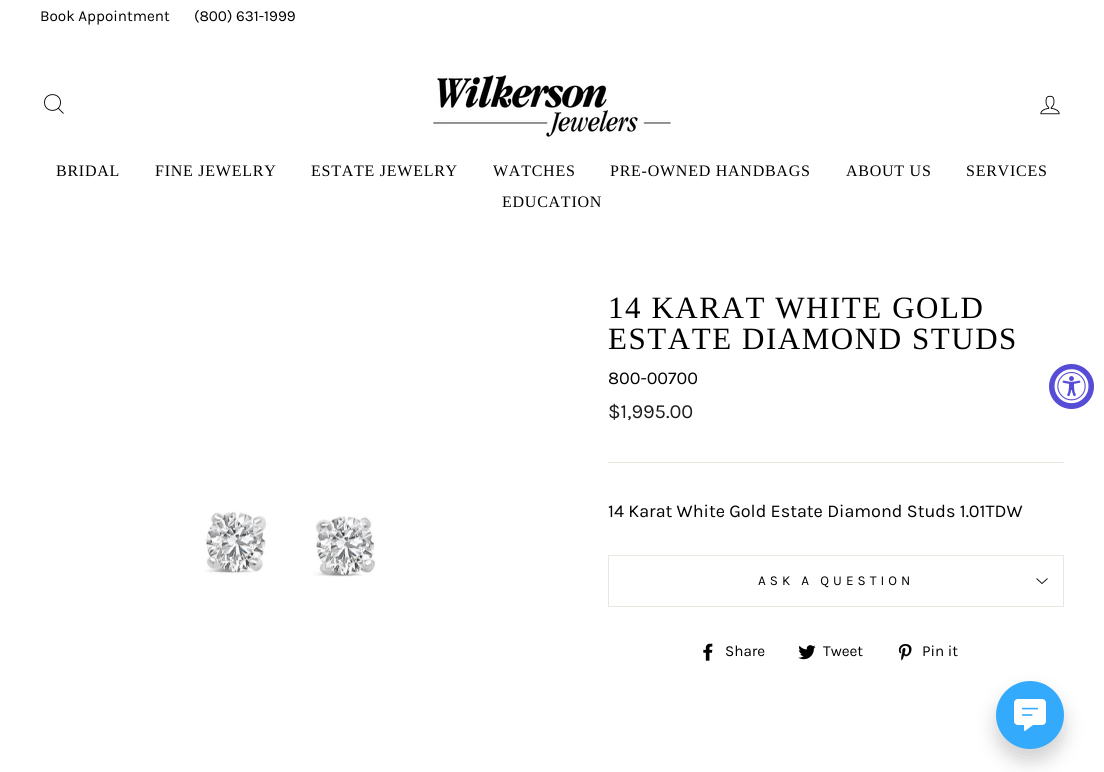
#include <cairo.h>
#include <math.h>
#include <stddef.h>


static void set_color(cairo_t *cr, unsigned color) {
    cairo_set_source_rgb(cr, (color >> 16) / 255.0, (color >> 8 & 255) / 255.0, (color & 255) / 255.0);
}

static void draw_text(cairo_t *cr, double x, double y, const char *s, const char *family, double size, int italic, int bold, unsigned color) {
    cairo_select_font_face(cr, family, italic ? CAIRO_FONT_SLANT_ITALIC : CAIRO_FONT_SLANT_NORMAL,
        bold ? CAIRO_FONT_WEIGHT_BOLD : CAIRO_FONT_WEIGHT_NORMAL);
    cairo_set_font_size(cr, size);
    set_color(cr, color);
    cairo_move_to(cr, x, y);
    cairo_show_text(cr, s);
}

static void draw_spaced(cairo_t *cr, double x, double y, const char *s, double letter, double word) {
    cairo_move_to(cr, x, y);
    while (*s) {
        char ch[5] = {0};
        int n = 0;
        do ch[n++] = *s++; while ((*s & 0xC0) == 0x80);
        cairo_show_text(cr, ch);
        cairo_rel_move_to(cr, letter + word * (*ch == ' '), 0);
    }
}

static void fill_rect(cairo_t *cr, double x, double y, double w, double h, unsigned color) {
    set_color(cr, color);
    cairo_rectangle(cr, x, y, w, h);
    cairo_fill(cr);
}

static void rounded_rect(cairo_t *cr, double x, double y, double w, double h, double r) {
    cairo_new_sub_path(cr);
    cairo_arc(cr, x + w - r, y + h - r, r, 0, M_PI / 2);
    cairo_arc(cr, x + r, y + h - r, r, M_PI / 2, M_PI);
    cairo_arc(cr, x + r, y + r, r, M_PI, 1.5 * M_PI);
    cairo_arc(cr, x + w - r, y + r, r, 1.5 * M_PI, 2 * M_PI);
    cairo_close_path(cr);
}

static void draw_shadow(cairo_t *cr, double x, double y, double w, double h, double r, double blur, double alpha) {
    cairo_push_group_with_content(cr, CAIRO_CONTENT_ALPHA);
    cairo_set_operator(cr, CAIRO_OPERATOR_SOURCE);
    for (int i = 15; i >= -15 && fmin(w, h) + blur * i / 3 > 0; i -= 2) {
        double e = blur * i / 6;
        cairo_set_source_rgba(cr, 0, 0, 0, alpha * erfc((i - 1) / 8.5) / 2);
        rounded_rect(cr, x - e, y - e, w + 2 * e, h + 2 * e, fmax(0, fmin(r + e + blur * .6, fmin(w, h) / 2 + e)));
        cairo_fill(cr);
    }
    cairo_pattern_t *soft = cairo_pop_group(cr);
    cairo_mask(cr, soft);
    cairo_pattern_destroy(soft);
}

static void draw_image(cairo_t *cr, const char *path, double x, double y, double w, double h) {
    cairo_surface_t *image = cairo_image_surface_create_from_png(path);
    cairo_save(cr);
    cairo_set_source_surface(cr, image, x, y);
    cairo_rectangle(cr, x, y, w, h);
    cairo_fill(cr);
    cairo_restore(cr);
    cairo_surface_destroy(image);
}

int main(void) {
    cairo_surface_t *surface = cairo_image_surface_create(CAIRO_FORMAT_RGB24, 1104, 772);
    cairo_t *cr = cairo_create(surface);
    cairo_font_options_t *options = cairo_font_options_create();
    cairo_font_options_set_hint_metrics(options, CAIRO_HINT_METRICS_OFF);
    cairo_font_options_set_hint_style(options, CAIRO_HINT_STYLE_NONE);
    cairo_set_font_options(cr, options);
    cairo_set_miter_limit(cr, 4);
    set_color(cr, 0xFFFFFF);
    cairo_paint(cr);
    draw_text(cr, 40, 21, "Book Appointment", "Karla", 15.25, 0, 0, 0x000000);
    draw_text(cr, 194, 21, "(800) 631-1999", "Karla", 15.25, 0, 0, 0x000000);
    cairo_new_path(cr);
    cairo_move_to(cr, 60.5, 102.5);
    cairo_curve_to(cr, 60.5, 113, 44.5, 113, 44.5, 102.5);
    cairo_curve_to(cr, 44.5, 92, 60.5, 92, 60.5, 102.5);
    cairo_close_path(cr);
    cairo_move_to(cr, 63.5, 113.5);
    cairo_line_to(cr, 58.5, 108.5);
    cairo_set_line_width(cr, 0.9);
    cairo_stroke(cr);
    draw_image(cr, "assets/img1.png", 433, 75, 238, 64);
    draw_image(cr, "assets/img2.png", 1040, 95, 20, 20);
    cairo_select_font_face(cr, "Liberation Serif", CAIRO_FONT_SLANT_NORMAL, CAIRO_FONT_WEIGHT_NORMAL);
    cairo_set_font_size(cr, 16);
    draw_spaced(cr, 56, 176, "BRIDAL", 0.75, 0);
    draw_spaced(cr, 155, 176, "FINE JEWELRY", 0.75, 0);
    draw_spaced(cr, 311, 176, "ESTATE JEWELRY", 0.75, 0);
    draw_spaced(cr, 493, 176, "WATCHES", 0.75, 0);
    draw_spaced(cr, 610, 176, "PRE-OWNED HANDBAGS", 0.75, 0);
    draw_spaced(cr, 846, 176, "ABOUT US", 0.75, 0);
    draw_spaced(cr, 966, 176, "SERVICES", 0.75, 0);
    draw_spaced(cr, 502, 207, "EDUCATION", 0.75, 0);
    draw_image(cr, "assets/img3.png", 204, 510, 172, 67);
    cairo_set_font_size(cr, 31);
    draw_spaced(cr, 608, 318, "14 KARAT WHITE GOLD", 1.55, 0);
    draw_spaced(cr, 608, 349, "ESTATE DIAMOND STUDS", 1.55, 0);
    draw_text(cr, 608, 384, "800-00700", "Karla", 18, 0, 0, 0x000000);
    draw_text(cr, 608, 418, "$1,995.00", "Karla", 20, 0, 0, 0x1C1D1D);
    fill_rect(cr, 608, 462, 456, 1, 0xE8E8E1);
    draw_text(cr, 608, 517, "14 Karat White Gold Estate Diamond Studs 1.01TDW", "Karla", 18, 0, 0, 0x000000);
    fill_rect(cr, 608, 606, 456, 1, 0xE8E8E1);
    fill_rect(cr, 608, 555, 456, 1, 0xE8E8E1);
    fill_rect(cr, 1063, 555, 1, 51, 0xE8E8E1);
    fill_rect(cr, 608, 555, 1, 51, 0xE8E8E1);
    cairo_set_font_size(cr, 13.5);
    set_color(cr, 0x000000);
    draw_spaced(cr, 758, 585, "ASK A QUESTION", 4, 0);
    cairo_new_path(cr);
    cairo_move_to(cr, 1036.5, 578.5);
    cairo_line_to(cr, 1042, 583.5);
    cairo_line_to(cr, 1047.5, 578.5);
    cairo_stroke(cr);
    draw_image(cr, "assets/img4.png", 703, 643, 10, 18);
    draw_text(cr, 725, 656, "Share", "Karla", 15.25, 0, 0, 0x000000);
    draw_image(cr, "assets/img5.png", 798, 645, 18, 15);
    draw_text(cr, 823, 656, "Tweet", "Karla", 15.25, 0, 0, 0x000000);
    draw_image(cr, "assets/img6.png", 898, 644, 14, 17);
    draw_text(cr, 922, 656, "Pin it", "Karla", 15.25, 0, 0, 0x000000);
    set_color(cr, 0x574CD5);
    cairo_new_path(cr);
    cairo_arc(cr, 1071.5, 386.5, 22.5, 0, 2 * M_PI);
    cairo_fill(cr);
    draw_image(cr, "assets/img7.png", 1054, 369, 35, 35);
    set_color(cr, 0x000000);
    draw_shadow(cr, 996, 693, 68, 68, 34, 9.5, 0.18);
    set_color(cr, 0x33AAFC);
    cairo_arc(cr, 1030, 715, 34, 0, 2 * M_PI);
    cairo_fill(cr);
    draw_image(cr, "assets/img8.png", 1014, 699, 32, 32);
    cairo_surface_write_to_png(surface, "output.png");
    cairo_font_options_destroy(options);
    cairo_destroy(cr);
    cairo_surface_destroy(surface);
    return 0;
}
